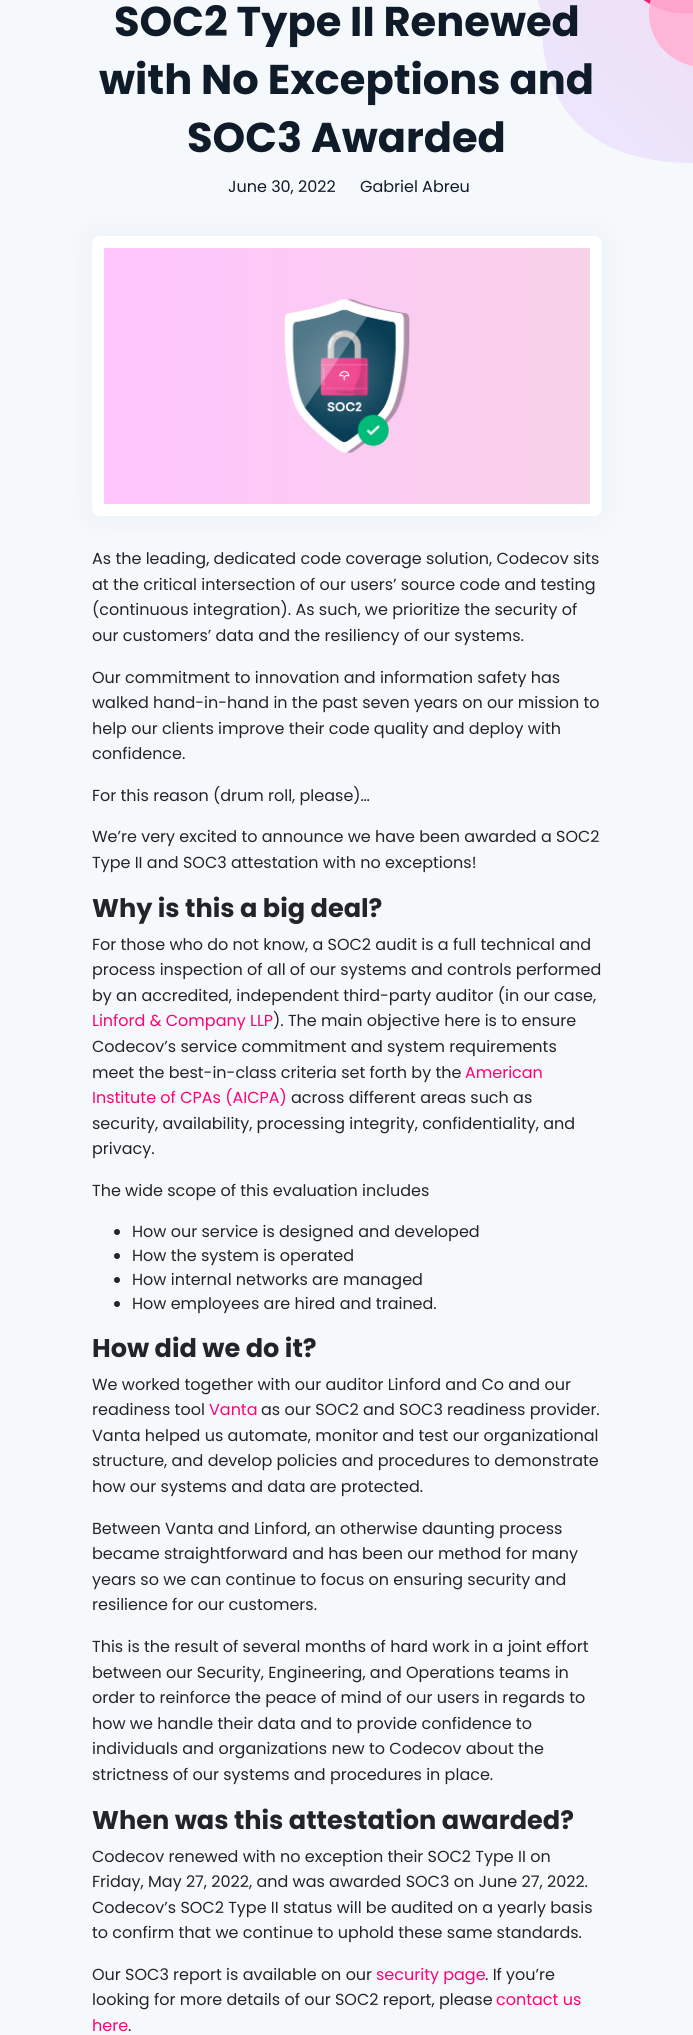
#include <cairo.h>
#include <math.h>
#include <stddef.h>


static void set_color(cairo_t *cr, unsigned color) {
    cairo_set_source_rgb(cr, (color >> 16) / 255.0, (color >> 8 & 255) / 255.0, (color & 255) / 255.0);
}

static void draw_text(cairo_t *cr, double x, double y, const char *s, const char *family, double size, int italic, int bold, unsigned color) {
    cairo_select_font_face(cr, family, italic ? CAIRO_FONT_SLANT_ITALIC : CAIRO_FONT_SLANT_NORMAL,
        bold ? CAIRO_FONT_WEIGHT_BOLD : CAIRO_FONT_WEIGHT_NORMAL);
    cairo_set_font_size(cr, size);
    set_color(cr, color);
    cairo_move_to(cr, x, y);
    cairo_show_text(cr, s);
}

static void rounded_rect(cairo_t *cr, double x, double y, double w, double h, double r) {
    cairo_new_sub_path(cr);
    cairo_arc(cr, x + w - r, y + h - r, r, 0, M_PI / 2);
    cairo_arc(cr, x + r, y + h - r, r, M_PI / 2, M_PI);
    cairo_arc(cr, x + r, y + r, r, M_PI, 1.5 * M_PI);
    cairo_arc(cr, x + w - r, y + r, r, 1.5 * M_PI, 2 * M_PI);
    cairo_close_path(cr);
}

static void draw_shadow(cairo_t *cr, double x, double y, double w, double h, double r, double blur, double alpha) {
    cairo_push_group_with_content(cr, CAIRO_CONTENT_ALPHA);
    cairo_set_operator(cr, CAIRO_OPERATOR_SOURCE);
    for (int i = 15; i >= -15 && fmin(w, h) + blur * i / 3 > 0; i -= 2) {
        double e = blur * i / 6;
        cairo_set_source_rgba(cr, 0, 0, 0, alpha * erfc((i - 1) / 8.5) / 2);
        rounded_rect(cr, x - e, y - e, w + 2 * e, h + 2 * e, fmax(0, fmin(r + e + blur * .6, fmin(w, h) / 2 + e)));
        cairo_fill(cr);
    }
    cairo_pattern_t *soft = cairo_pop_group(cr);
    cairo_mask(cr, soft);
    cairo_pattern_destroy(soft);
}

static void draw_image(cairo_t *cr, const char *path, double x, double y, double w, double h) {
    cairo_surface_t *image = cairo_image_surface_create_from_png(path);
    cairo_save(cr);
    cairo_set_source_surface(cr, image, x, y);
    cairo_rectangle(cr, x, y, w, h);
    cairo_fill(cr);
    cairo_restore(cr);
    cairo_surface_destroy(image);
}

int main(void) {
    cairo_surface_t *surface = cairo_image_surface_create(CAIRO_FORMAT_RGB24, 693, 2035);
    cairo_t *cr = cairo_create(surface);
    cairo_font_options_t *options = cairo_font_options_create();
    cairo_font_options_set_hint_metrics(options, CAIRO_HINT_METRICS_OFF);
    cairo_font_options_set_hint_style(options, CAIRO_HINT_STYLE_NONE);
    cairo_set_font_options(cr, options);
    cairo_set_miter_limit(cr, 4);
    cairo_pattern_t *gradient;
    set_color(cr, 0xF6F9FC);
    cairo_paint(cr);
    gradient = cairo_pattern_create_linear(464, -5.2, 652, -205);
    cairo_pattern_add_color_stop_rgba(gradient, 0, 0.925, 0.898, 0.984, 1);
    cairo_pattern_add_color_stop_rgba(gradient, 1, 0.949, 0.859, 0.945, 1);
    cairo_set_source(cr, gradient);
    cairo_pattern_destroy(gradient);
    cairo_new_path(cr);
    cairo_move_to(cr, 693, 156);
    cairo_line_to(cr, 693, -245);
    cairo_line_to(cr, 307, -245);
    cairo_curve_to(cr, 287, -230, 277, -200, 277, -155);
    cairo_curve_to(cr, 277, -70, 363, -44, 412, -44);
    cairo_curve_to(cr, 462, -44, 542, -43, 542, 26);
    cairo_curve_to(cr, 542, 96, 578, 163, 693, 163);
    cairo_close_path(cr);
    cairo_fill(cr);
    draw_text(cr, 114, 36, "SOC2 Type II Renewed", "Poppins", 41.6, 0, 1, 0x0F1B29);
    draw_text(cr, 99, 94, "with No Exceptions and", "Poppins", 41.6, 0, 1, 0x0F1B29);
    draw_text(cr, 187, 152, "SOC3 Awarded", "Poppins", 41.6, 0, 1, 0x0F1B29);
    draw_text(cr, 228, 192, "June 30, 2022", "Poppins", 16, 0, 0, 0x0F1B29);
    draw_text(cr, 360, 192, "Gabriel Abreu", "Poppins", 16, 0, 0, 0x0F1B29);
    set_color(cr, 0xF01F7A);
    cairo_new_path(cr);
    cairo_move_to(cr, 693, 13);
    cairo_curve_to(cr, 640, 19, 598, -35, 619, -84);
    cairo_curve_to(cr, 625, -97, 634, -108, 645, -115);
    cairo_curve_to(cr, 659, -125, 676, -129, 693, -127);
    cairo_close_path(cr);
    cairo_fill(cr);
    cairo_set_source_rgba(cr, 1, 0.698, 0.827, 0.9);
    cairo_new_path(cr);
    cairo_move_to(cr, 693, 66);
    cairo_curve_to(cr, 668, 61, 649, 40, 649, 13);
    cairo_curve_to(cr, 649, -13, 668, -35, 693, -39);
    cairo_fill(cr);
    set_color(cr, 0x0F1B29);
    draw_shadow(cr, 92, 236, 510, 280, 8, 15, 0.05);
    set_color(cr, 0xFFFFFF);
    rounded_rect(cr, 92, 236, 510, 280, 8);
    cairo_fill(cr);
    draw_image(cr, "assets/img1.png", 104, 248, 486, 256);
    draw_text(cr, 92, 564, "As the leading, dedicated code coverage solution, Codecov sits", "Poppins", 16, 0, 0, 0x212529);
    draw_text(cr, 92, 590, "at the critical intersection of our users’ source code and testing", "Poppins", 16, 0, 0, 0x212529);
    draw_text(cr, 92, 615, "(continuous integration). As such, we prioritize the security of", "Poppins", 16, 0, 0, 0x212529);
    draw_text(cr, 92, 641, "our customers’ data and the resiliency of our systems.", "Poppins", 16, 0, 0, 0x212529);
    draw_text(cr, 92, 683, "Our commitment to innovation and information safety has", "Poppins", 16, 0, 0, 0x212529);
    draw_text(cr, 92, 708, "walked hand-in-hand in the past seven years on our mission to", "Poppins", 16, 0, 0, 0x212529);
    draw_text(cr, 92, 734, "help our clients improve their code quality and deploy with", "Poppins", 16, 0, 0, 0x212529);
    draw_text(cr, 92, 759, "confidence.", "Poppins", 16, 0, 0, 0x212529);
    draw_text(cr, 92, 801, "For this reason (drum roll, please)…", "Poppins", 16, 0, 0, 0x212529);
    draw_text(cr, 92, 842, "We’re very excited to announce we have been awarded a SOC2", "Poppins", 16, 0, 0, 0x212529);
    draw_text(cr, 92, 868, "Type II and SOC3 attestation with no exceptions!", "Poppins", 16, 0, 0, 0x212529);
    draw_text(cr, 92, 917, "Why is this a big deal?", "Poppins", 25.6, 0, 1, 0x212529);
    draw_text(cr, 92, 950, "For those who do not know, a SOC2 audit is a full technical and", "Poppins", 16, 0, 0, 0x212529);
    draw_text(cr, 92, 975, "process inspection of all of our systems and controls performed", "Poppins", 16, 0, 0, 0x212529);
    draw_text(cr, 92, 1001, "by an accredited, independent third-party auditor (in our case,", "Poppins", 16, 0, 0, 0x212529);
    draw_text(cr, 92, 1026, "Linford & Company LLP", "Poppins", 16, 0, 0, 0xFF0077);
    draw_text(cr, 273, 1026, "). The main objective here is to ensure", "Poppins", 16, 0, 0, 0x212529);
    draw_text(cr, 92, 1052, "Codecov’s service commitment and system requirements", "Poppins", 16, 0, 0, 0x212529);
    draw_text(cr, 92, 1078, "meet the best-in-class criteria set forth by the", "Poppins", 16, 0, 0, 0x212529);
    draw_text(cr, 465, 1078, "American", "Poppins", 16, 0, 0, 0xFF0077);
    draw_text(cr, 92, 1103, "Institute of CPAs (AICPA)", "Poppins", 16, 0, 0, 0xFF0077);
    draw_text(cr, 291, 1103, "across different areas such as", "Poppins", 16, 0, 0, 0x212529);
    draw_text(cr, 92, 1129, "security, availability, processing integrity, confidentiality, and", "Poppins", 16, 0, 0, 0x212529);
    draw_text(cr, 92, 1154, "privacy.", "Poppins", 16, 0, 0, 0x212529);
    draw_text(cr, 92, 1196, "The wide scope of this evaluation includes", "Poppins", 16, 0, 0, 0x212529);
    cairo_new_path(cr);
    cairo_arc(cr, 117, 1232, 3, 0, 2 * M_PI);
    cairo_fill(cr);
    draw_text(cr, 132, 1237, "How our service is designed and developed", "Poppins", 16, 0, 0, 0x212529);
    cairo_new_path(cr);
    cairo_arc(cr, 117, 1256, 3, 0, 2 * M_PI);
    cairo_fill(cr);
    draw_text(cr, 132, 1261, "How the system is operated", "Poppins", 16, 0, 0, 0x212529);
    cairo_new_path(cr);
    cairo_arc(cr, 117, 1280, 3, 0, 2 * M_PI);
    cairo_fill(cr);
    draw_text(cr, 132, 1285, "How internal networks are managed", "Poppins", 16, 0, 0, 0x212529);
    cairo_new_path(cr);
    cairo_arc(cr, 117, 1304, 3, 0, 2 * M_PI);
    cairo_fill(cr);
    draw_text(cr, 132, 1309, "How employees are hired and trained.", "Poppins", 16, 0, 0, 0x212529);
    draw_text(cr, 92, 1357, "How did we do it?", "Poppins", 25.6, 0, 1, 0x212529);
    draw_text(cr, 92, 1390, "We worked together with our auditor Linford and Co and our", "Poppins", 16, 0, 0, 0x212529);
    draw_text(cr, 92, 1415, "readiness tool", "Poppins", 16, 0, 0, 0x212529);
    draw_text(cr, 209, 1415, "Vanta", "Poppins", 16, 0, 0, 0xFF0077);
    draw_text(cr, 261, 1415, "as our SOC2 and SOC3 readiness provider.", "Poppins", 16, 0, 0, 0x212529);
    draw_text(cr, 92, 1441, "Vanta helped us automate, monitor and test our organizational", "Poppins", 16, 0, 0, 0x212529);
    draw_text(cr, 92, 1466, "structure, and develop policies and procedures to demonstrate", "Poppins", 16, 0, 0, 0x212529);
    draw_text(cr, 92, 1492, "how our systems and data are protected.", "Poppins", 16, 0, 0, 0x212529);
    draw_text(cr, 92, 1534, "Between Vanta and Linford, an otherwise daunting process", "Poppins", 16, 0, 0, 0x212529);
    draw_text(cr, 92, 1559, "became straightforward and has been our method for many", "Poppins", 16, 0, 0, 0x212529);
    draw_text(cr, 92, 1585, "years so we can continue to focus on ensuring security and", "Poppins", 16, 0, 0, 0x212529);
    draw_text(cr, 92, 1610, "resilience for our customers.", "Poppins", 16, 0, 0, 0x212529);
    draw_text(cr, 92, 1652, "This is the result of several months of hard work in a joint effort", "Poppins", 16, 0, 0, 0x212529);
    draw_text(cr, 92, 1678, "between our Security, Engineering, and Operations teams in", "Poppins", 16, 0, 0, 0x212529);
    draw_text(cr, 92, 1703, "order to reinforce the peace of mind of our users in regards to", "Poppins", 16, 0, 0, 0x212529);
    draw_text(cr, 92, 1729, "how we handle their data and to provide confidence to", "Poppins", 16, 0, 0, 0x212529);
    draw_text(cr, 92, 1754, "individuals and organizations new to Codecov about the", "Poppins", 16, 0, 0, 0x212529);
    draw_text(cr, 92, 1780, "strictness of our systems and procedures in place.", "Poppins", 16, 0, 0, 0x212529);
    draw_text(cr, 92, 1829, "When was this attestation awarded?", "Poppins", 25.6, 0, 1, 0x212529);
    draw_text(cr, 92, 1862, "Codecov renewed with no exception their SOC2 Type II on", "Poppins", 16, 0, 0, 0x212529);
    draw_text(cr, 92, 1887, "Friday, May 27, 2022, and was awarded SOC3 on June 27, 2022.", "Poppins", 16, 0, 0, 0x212529);
    draw_text(cr, 92, 1913, "Codecov’s SOC2 Type II status will be audited on a yearly basis", "Poppins", 16, 0, 0, 0x212529);
    draw_text(cr, 92, 1938, "to confirm that we continue to uphold these same standards.", "Poppins", 16, 0, 0, 0x212529);
    draw_text(cr, 92, 1980, "Our SOC3 report is available on our", "Poppins", 16, 0, 0, 0x212529);
    draw_text(cr, 376, 1980, "security page", "Poppins", 16, 0, 0, 0xFF0077);
    draw_text(cr, 485, 1980, ". If you’re", "Poppins", 16, 0, 0, 0x212529);
    draw_text(cr, 92, 2005, "looking for more details of our SOC2 report, please", "Poppins", 16, 0, 0, 0x212529);
    draw_text(cr, 496, 2005, "contact us", "Poppins", 16, 0, 0, 0xFF0077);
    draw_text(cr, 92, 2031, "here", "Poppins", 16, 0, 0, 0xFF0077);
    draw_text(cr, 128, 2031, ".", "Poppins", 16, 0, 0, 0x212529);
    cairo_surface_write_to_png(surface, "output.png");
    cairo_font_options_destroy(options);
    cairo_destroy(cr);
    cairo_surface_destroy(surface);
    return 0;
}
